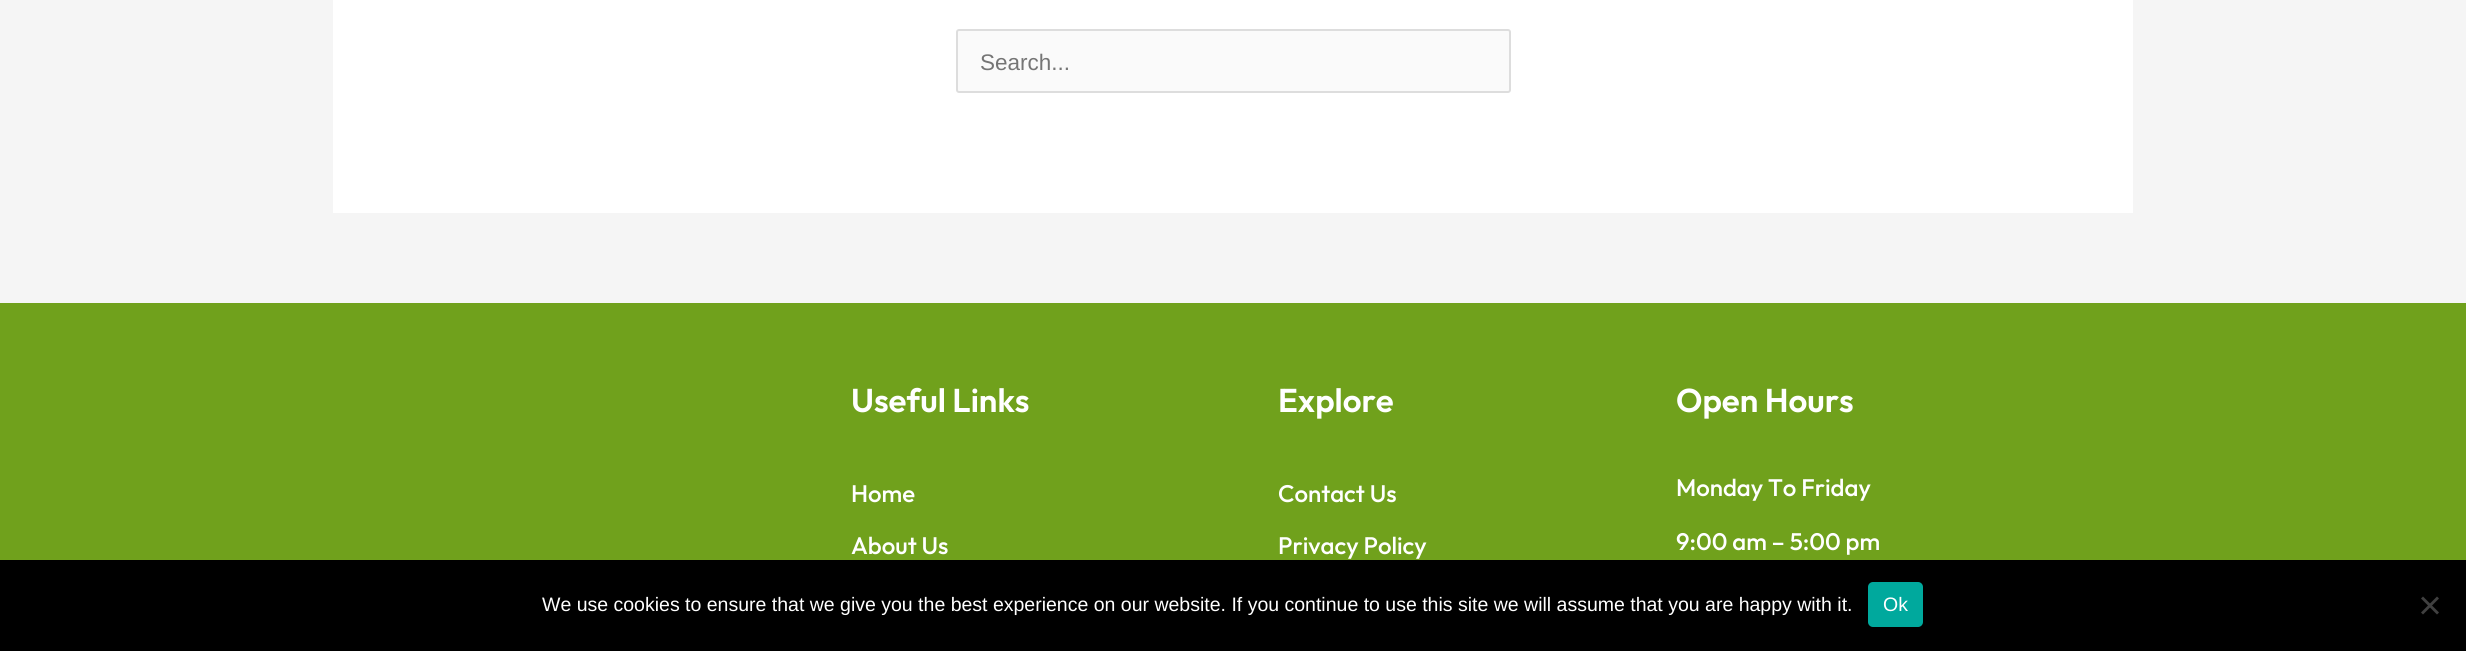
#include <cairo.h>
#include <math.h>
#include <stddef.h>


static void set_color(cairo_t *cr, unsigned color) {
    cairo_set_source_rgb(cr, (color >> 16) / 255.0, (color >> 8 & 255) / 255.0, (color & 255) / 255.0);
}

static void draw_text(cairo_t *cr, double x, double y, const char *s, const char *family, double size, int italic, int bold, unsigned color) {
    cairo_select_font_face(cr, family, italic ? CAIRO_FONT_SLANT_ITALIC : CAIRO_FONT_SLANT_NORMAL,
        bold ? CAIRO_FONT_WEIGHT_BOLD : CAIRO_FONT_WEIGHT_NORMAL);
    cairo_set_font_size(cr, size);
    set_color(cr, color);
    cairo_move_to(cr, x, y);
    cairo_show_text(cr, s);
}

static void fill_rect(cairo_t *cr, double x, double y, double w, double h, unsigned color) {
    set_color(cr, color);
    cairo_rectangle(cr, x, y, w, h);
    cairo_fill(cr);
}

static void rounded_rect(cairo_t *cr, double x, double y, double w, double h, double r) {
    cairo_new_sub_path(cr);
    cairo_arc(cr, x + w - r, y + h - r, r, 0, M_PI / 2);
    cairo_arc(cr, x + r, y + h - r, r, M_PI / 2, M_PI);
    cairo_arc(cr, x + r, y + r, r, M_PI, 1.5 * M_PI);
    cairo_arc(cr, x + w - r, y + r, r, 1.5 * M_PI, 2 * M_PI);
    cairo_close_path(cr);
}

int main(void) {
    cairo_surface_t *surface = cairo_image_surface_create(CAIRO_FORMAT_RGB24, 2466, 651);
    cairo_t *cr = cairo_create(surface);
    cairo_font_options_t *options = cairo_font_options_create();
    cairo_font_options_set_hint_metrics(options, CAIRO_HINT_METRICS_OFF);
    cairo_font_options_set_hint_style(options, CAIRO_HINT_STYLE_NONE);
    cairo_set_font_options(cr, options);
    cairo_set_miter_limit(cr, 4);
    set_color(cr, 0xF5F5F5);
    cairo_paint(cr);
    fill_rect(cr, 333, 0, 1800, 213, 0xFFFFFF);
    set_color(cr, 0xFAFAFA);
    rounded_rect(cr, 957, 30, 553, 62, 2);
    cairo_fill_preserve(cr);
    set_color(cr, 0xDDDDDD);
    cairo_stroke(cr);
    draw_text(cr, 980, 70, "Search...", "Liberation Sans", 22.5, 0, 0, 0x757575);
    fill_rect(cr, 0, 303, 2466, 257, 0x70A11C);
    draw_text(cr, 851, 412, "Useful Links", "Outfit SemiBold", 33, 0, 0, 0xFFFFFF);
    draw_text(cr, 851, 502, "Home", "Outfit Medium", 24, 0, 0, 0xFFFFFF);
    draw_text(cr, 851, 554, "About Us", "Outfit Medium", 24, 0, 0, 0xFFFFFF);
    draw_text(cr, 1278, 412, "Explore", "Outfit SemiBold", 33, 0, 0, 0xFFFFFF);
    draw_text(cr, 1278, 502, "Contact Us", "Outfit Medium", 24, 0, 0, 0xFFFFFF);
    draw_text(cr, 1278, 554, "Privacy Policy", "Outfit Medium", 24, 0, 0, 0xFFFFFF);
    draw_text(cr, 1676, 412, "Open Hours", "Outfit SemiBold", 33, 0, 0, 0xFFFFFF);
    draw_text(cr, 1676, 496, "Monday To Friday", "Outfit Medium", 24, 0, 0, 0xFFFFFF);
    draw_text(cr, 1676, 550, "9:00 am – 5:00 pm", "Outfit Medium", 24, 0, 0, 0xFFFFFF);
    fill_rect(cr, 0, 560, 2466, 91, 0x000000);
    draw_text(cr, 542, 611, "We use cookies to ensure that we give you the best experience on our website. If you continue to use this site we will assume that you are happy with it.", "Liberation Sans", 19.5, 0, 0, 0xFFFFFF);
    set_color(cr, 0x00A99D);
    rounded_rect(cr, 1868, 582, 55, 45, 5);
    cairo_fill(cr);
    draw_text(cr, 1883, 611, "Ok", "Liberation Sans", 19.5, 0, 0, 0xFFFFFF);
    set_color(cr, 0x404040);
    cairo_new_path(cr);
    cairo_move_to(cr, 2437, 596.5);
    cairo_line_to(cr, 2439, 598.5);
    cairo_line_to(cr, 2423, 614.5);
    cairo_line_to(cr, 2421, 612.5);
    cairo_close_path(cr);
    cairo_fill(cr);
    cairo_new_path(cr);
    cairo_move_to(cr, 2421, 598.5);
    cairo_line_to(cr, 2423, 596.5);
    cairo_line_to(cr, 2439, 612.5);
    cairo_line_to(cr, 2437, 614.5);
    cairo_close_path(cr);
    cairo_fill(cr);
    cairo_surface_write_to_png(surface, "output.png");
    cairo_font_options_destroy(options);
    cairo_destroy(cr);
    cairo_surface_destroy(surface);
    return 0;
}
